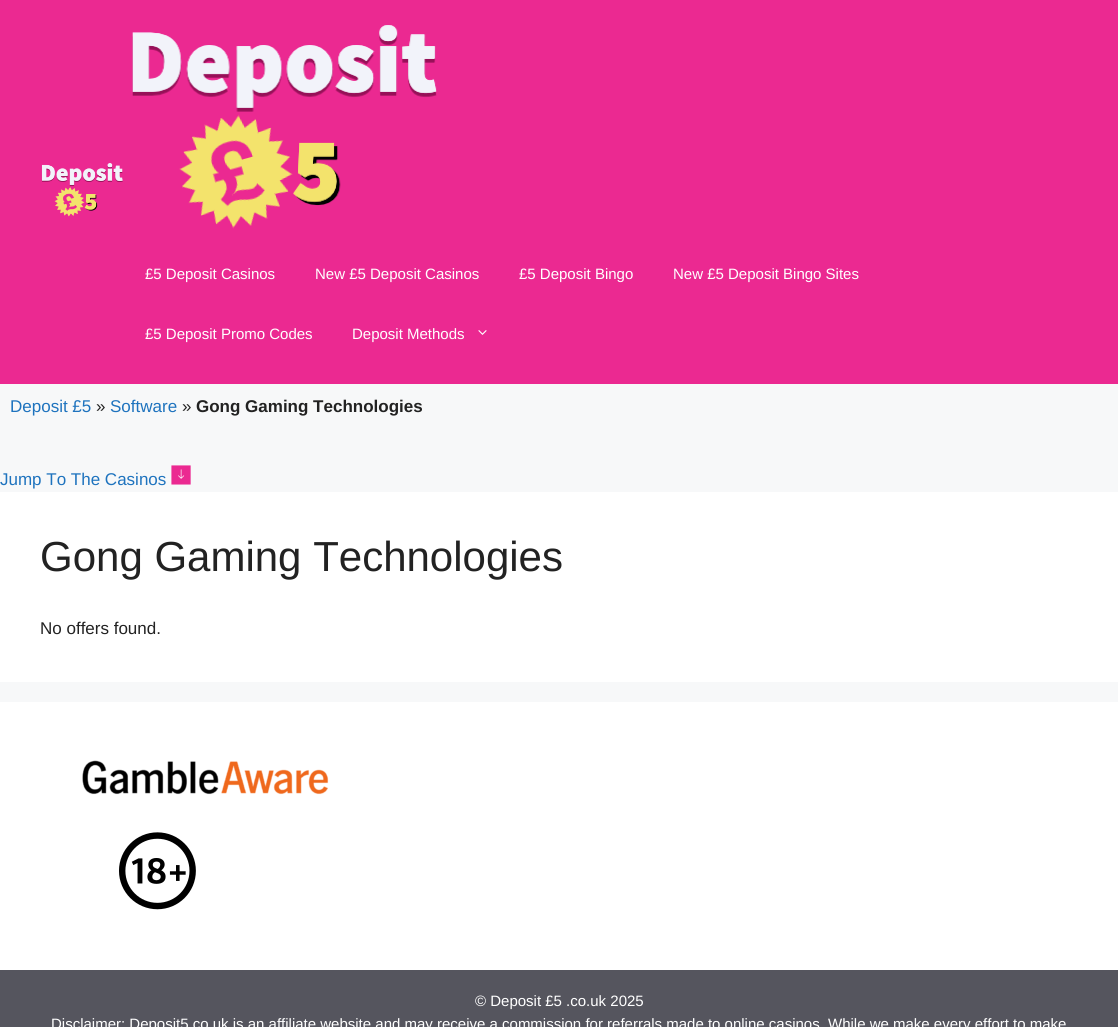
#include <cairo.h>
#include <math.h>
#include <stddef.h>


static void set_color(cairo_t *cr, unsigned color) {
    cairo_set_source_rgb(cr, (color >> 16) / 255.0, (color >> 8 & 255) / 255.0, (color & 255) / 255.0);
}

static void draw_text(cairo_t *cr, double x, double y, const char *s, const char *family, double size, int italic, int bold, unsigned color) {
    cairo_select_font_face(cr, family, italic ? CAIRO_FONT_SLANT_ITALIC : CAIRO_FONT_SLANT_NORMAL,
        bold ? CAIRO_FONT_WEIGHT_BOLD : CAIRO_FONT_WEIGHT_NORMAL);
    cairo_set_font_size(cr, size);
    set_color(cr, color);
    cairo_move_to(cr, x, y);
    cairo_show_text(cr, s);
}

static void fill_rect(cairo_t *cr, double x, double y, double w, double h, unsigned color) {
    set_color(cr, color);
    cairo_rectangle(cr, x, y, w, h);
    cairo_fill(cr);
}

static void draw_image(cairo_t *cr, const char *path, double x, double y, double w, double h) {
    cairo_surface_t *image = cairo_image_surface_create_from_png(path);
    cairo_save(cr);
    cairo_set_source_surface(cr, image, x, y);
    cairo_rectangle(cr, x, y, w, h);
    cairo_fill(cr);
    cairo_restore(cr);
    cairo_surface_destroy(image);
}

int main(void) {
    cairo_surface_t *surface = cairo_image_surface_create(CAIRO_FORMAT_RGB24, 1118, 1027);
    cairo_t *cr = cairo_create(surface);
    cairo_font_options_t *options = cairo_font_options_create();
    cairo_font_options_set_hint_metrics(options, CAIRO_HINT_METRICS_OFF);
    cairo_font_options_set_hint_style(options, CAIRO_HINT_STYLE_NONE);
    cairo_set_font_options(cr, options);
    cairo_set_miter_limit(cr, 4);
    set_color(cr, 0xF7F8F9);
    cairo_paint(cr);
    fill_rect(cr, 0, 0, 1118, 384, 0xEB2991);
    draw_image(cr, "assets/img1.png", 41, 163, 82, 54);
    draw_image(cr, "assets/img2.png", 132, 25, 305, 204);
    draw_text(cr, 145, 279, "£5 Deposit Casinos", "Arimo", 15, 0, 0, 0xFFFFFF);
    draw_text(cr, 315, 279, "New £5 Deposit Casinos", "Arimo", 15, 0, 0, 0xFFFFFF);
    draw_text(cr, 519, 279, "£5 Deposit Bingo", "Arimo", 15, 0, 0, 0xFFFFFF);
    draw_text(cr, 673, 279, "New £5 Deposit Bingo Sites", "Arimo", 15, 0, 0, 0xFFFFFF);
    draw_text(cr, 145, 339, "£5 Deposit Promo Codes", "Arimo", 15, 0, 0, 0xFFFFFF);
    draw_text(cr, 352, 339, "Deposit Methods", "Arimo", 15, 0, 0, 0xFFFFFF);
    draw_image(cr, "assets/img3.png", 478, 330, 9, 5);
    draw_text(cr, 10, 412, "Deposit £5", "Arimo", 17, 0, 0, 0x1E73BE);
    draw_text(cr, 96, 412, "»", "Arimo", 17, 0, 0, 0x222222);
    draw_text(cr, 110, 412, "Software", "Arimo", 17, 0, 0, 0x1E73BE);
    draw_text(cr, 182, 412, "»", "Arimo", 17, 0, 0, 0x222222);
    draw_text(cr, 196, 412, "Gong Gaming Technologies", "Arimo", 17, 0, 1, 0x222222);
    draw_text(cr, 0, 485, "Jump To The Casinos", "Arimo", 17, 0, 0, 0x1E73BE);
    draw_image(cr, "assets/img4.png", 171, 465, 20, 20);
    fill_rect(cr, 0, 492, 1118, 190, 0xFFFFFF);
    draw_text(cr, 40, 571, "Gong Gaming Technologies", "Arimo", 42, 0, 0, 0x222222);
    draw_text(cr, 40, 634, "No offers found.", "Arimo", 17, 0, 0, 0x222222);
    fill_rect(cr, 0, 702, 1118, 268, 0xFFFFFF);
    draw_image(cr, "assets/img5.png", 82, 760, 247, 35);
    draw_image(cr, "assets/img6.png", 119, 832, 77, 78);
    fill_rect(cr, 0, 970, 1118, 57, 0x55555E);
    draw_text(cr, 475, 1006, "© Deposit £5 .co.uk 2025", "Arimo", 15, 0, 0, 0xFFFFFF);
    draw_text(cr, 51, 1029, "Disclaimer: Deposit5.co.uk is an affiliate website and may receive a commission for referrals made to online casinos. While we make every effort to make", "Arimo", 15, 0, 0, 0xFFFFFF);
    cairo_surface_write_to_png(surface, "output.png");
    cairo_font_options_destroy(options);
    cairo_destroy(cr);
    cairo_surface_destroy(surface);
    return 0;
}
